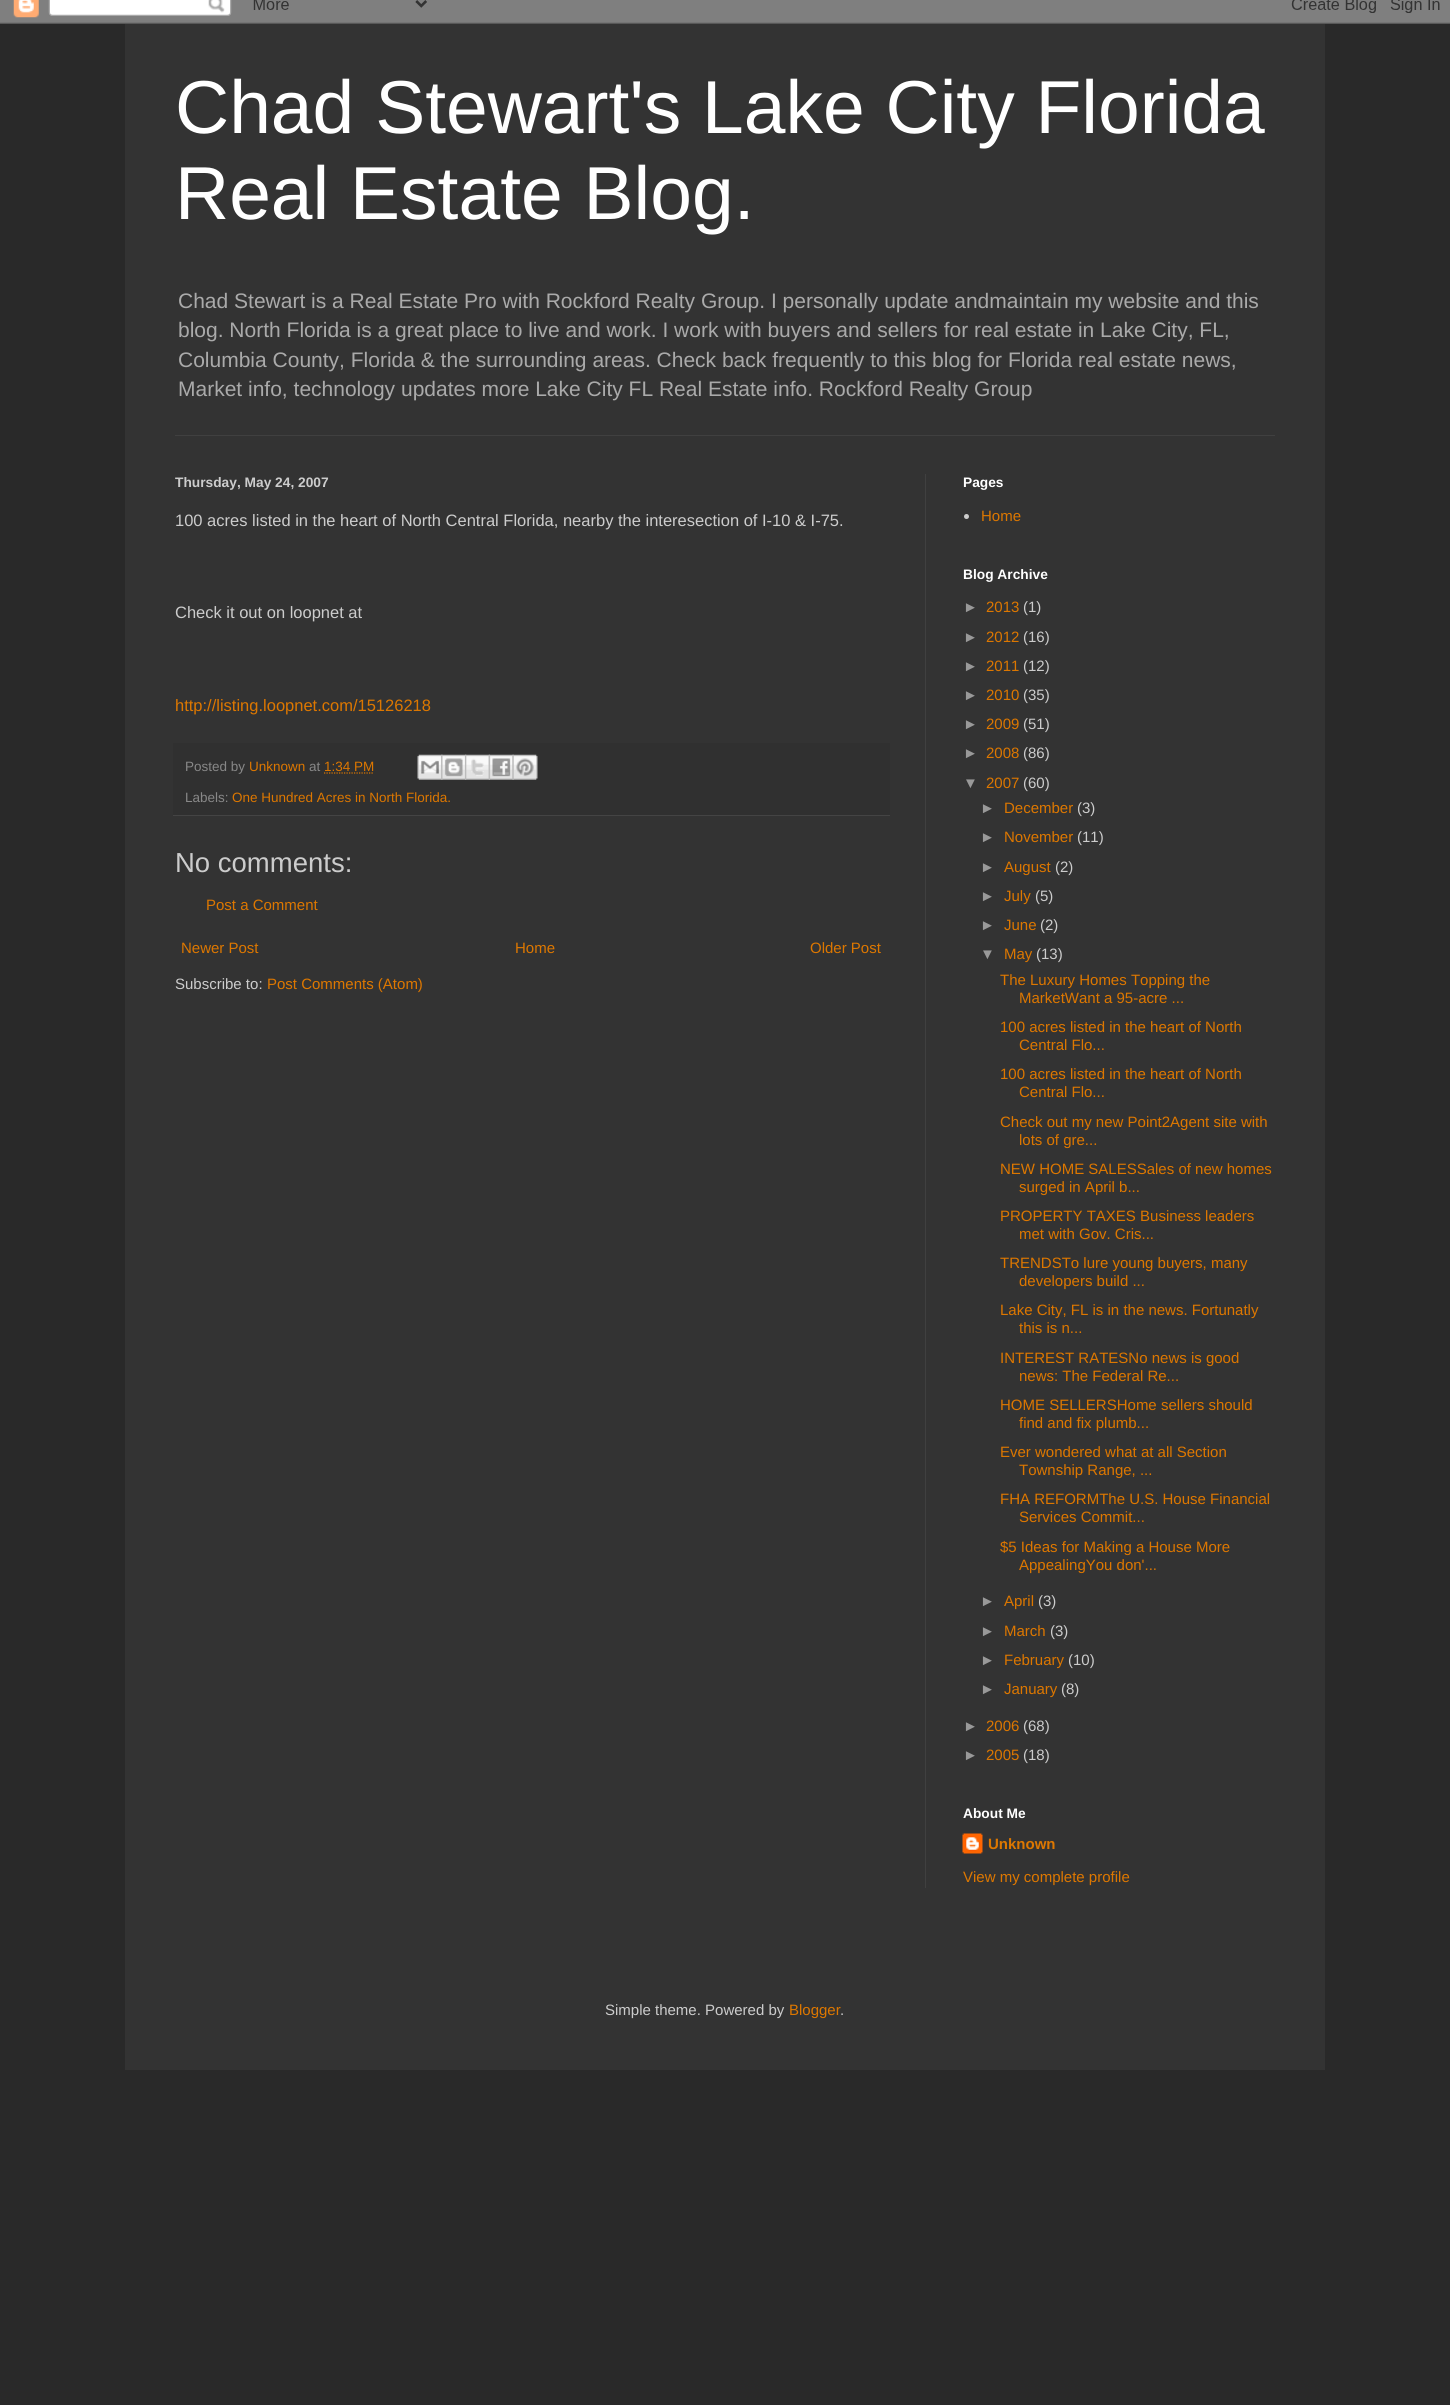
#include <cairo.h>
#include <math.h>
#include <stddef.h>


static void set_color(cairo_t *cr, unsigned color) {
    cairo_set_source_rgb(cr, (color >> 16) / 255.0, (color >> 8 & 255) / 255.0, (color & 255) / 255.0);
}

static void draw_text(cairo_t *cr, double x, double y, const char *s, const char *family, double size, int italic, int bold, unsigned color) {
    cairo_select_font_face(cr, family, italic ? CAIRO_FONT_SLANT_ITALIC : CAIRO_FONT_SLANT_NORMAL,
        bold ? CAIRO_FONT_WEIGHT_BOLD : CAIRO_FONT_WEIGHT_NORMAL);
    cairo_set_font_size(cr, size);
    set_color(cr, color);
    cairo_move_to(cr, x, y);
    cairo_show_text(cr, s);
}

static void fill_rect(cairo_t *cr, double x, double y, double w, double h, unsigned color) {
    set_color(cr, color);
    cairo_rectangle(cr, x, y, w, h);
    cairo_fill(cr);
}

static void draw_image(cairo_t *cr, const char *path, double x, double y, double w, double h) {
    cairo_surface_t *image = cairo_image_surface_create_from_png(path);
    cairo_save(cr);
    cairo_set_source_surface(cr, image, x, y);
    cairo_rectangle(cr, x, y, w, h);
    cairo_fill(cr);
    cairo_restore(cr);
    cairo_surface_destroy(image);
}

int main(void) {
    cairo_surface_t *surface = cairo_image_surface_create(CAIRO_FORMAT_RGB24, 1450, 2405);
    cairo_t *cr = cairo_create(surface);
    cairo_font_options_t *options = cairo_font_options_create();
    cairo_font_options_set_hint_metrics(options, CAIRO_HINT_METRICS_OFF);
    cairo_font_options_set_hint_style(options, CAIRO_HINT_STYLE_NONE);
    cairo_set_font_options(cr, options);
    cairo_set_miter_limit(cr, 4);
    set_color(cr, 0x292929);
    cairo_paint(cr);
    draw_image(cr, "assets/img1.png", 0, 0, 1450, 24);
    fill_rect(cr, 125, 24, 1200, 2046, 0x333333);
    draw_text(cr, 175, 133, "Chad Stewart's Lake City Florida", "Liberation Sans", 75, 0, 0, 0xFFFFFF);
    draw_text(cr, 175, 219, "Real Estate Blog.", "Liberation Sans", 75, 0, 0, 0xFFFFFF);
    draw_text(cr, 178, 308, "Chad Stewart is a Real Estate Pro with Rockford Realty Group. I personally update andmaintain my website and this", "Liberation Sans", 21, 0, 0, 0xAAAAAA);
    draw_text(cr, 178, 337, "blog. North Florida is a great place to live and work. I work with buyers and sellers for real estate in Lake City, FL,", "Liberation Sans", 21, 0, 0, 0xAAAAAA);
    draw_text(cr, 178, 367, "Columbia County, Florida & the surrounding areas. Check back frequently to this blog for Florida real estate news,", "Liberation Sans", 21, 0, 0, 0xAAAAAA);
    draw_text(cr, 178, 396, "Market info, technology updates more Lake City FL Real Estate info. Rockford Realty Group", "Liberation Sans", 21, 0, 0, 0xAAAAAA);
    fill_rect(cr, 175, 435, 1100, 1, 0x404040);
    fill_rect(cr, 925, 474, 1, 1414, 0x404040);
    draw_text(cr, 175, 487, "Thursday, May 24, 2007", "Liberation Sans", 13.75, 0, 1, 0xCCCCCC);
    draw_text(cr, 175, 526, "100 acres listed in the heart of North Central Florida, nearby the interesection of I-10 & I-75.", "Liberation Sans", 16.5, 0, 0, 0xCCCCCC);
    draw_text(cr, 175, 618, "Check it out on loopnet at", "Liberation Sans", 16.5, 0, 0, 0xCCCCCC);
    draw_text(cr, 175, 711, "http://listing.loopnet.com/15126218", "Liberation Sans", 16.5, 0, 0, 0xDD7700);
    fill_rect(cr, 173, 743, 717, 72, 0x303030);
    fill_rect(cr, 173, 815, 717, 1, 0x444444);
    draw_text(cr, 185, 771, "Posted by", "Liberation Sans", 13.5, 0, 0, 0x888888);
    draw_text(cr, 249, 771, "Unknown", "Liberation Sans", 13.5, 0, 0, 0xDD7700);
    draw_text(cr, 309, 771, "at", "Liberation Sans", 13.5, 0, 0, 0x888888);
    draw_text(cr, 324, 771, "1:34 PM", "Liberation Sans", 13.5, 0, 0, 0xDD7700);
    cairo_new_path(cr);
    cairo_move_to(cr, 324, 773);
    cairo_line_to(cr, 374, 773);
    cairo_set_line_width(cr, 1.2);
    cairo_set_dash(cr, (double[]){1.25, 1.25}, 2, 0);
    cairo_stroke(cr);
    draw_image(cr, "assets/img2.png", 417, 754, 26, 26);
    draw_image(cr, "assets/img3.png", 441, 754, 26, 26);
    draw_image(cr, "assets/img4.png", 465, 754, 25, 26);
    draw_image(cr, "assets/img5.png", 488, 754, 26, 26);
    draw_image(cr, "assets/img6.png", 512, 754, 26, 26);
    draw_text(cr, 185, 802, "Labels:", "Liberation Sans", 13.5, 0, 0, 0x888888);
    draw_text(cr, 232, 802, "One Hundred Acres in North Florida.", "Liberation Sans", 13.5, 0, 0, 0xDD7700);
    draw_text(cr, 175, 872, "No comments:", "Liberation Sans", 27.5, 0, 0, 0xCCCCCC);
    draw_text(cr, 206, 910, "Post a Comment", "Liberation Sans", 15, 0, 0, 0xDD7700);
    draw_text(cr, 181, 953, "Newer Post", "Liberation Sans", 15, 0, 0, 0xDD7700);
    draw_text(cr, 515, 953, "Home", "Liberation Sans", 15, 0, 0, 0xDD7700);
    draw_text(cr, 810, 953, "Older Post", "Liberation Sans", 15, 0, 0, 0xDD7700);
    draw_text(cr, 175, 989, "Subscribe to:", "Liberation Sans", 15, 0, 0, 0xCCCCCC);
    draw_text(cr, 267, 989, "Post Comments (Atom)", "Liberation Sans", 15, 0, 0, 0xDD7700);
    draw_text(cr, 963, 487, "Pages", "Liberation Sans", 13.75, 0, 1, 0xFFFFFF);
    set_color(cr, 0xCCCCCC);
    cairo_new_path(cr);
    cairo_arc(cr, 966.5, 516.5, 2.5, 0, 2 * M_PI);
    cairo_fill(cr);
    draw_text(cr, 981, 521, "Home", "Liberation Sans", 15, 0, 0, 0xDD7700);
    draw_text(cr, 963, 579, "Blog Archive", "Liberation Sans", 13.75, 0, 1, 0xFFFFFF);
    draw_text(cr, 963, 612, "►", "Liberation Sans", 15, 0, 0, 0x999999);
    draw_text(cr, 986, 612, "2013", "Liberation Sans", 15, 0, 0, 0xDD7700);
    draw_text(cr, 1023, 612, "(1)", "Liberation Sans", 15, 0, 0, 0xCCCCCC);
    draw_text(cr, 963, 642, "►", "Liberation Sans", 15, 0, 0, 0x999999);
    draw_text(cr, 986, 642, "2012", "Liberation Sans", 15, 0, 0, 0xDD7700);
    draw_text(cr, 1023, 642, "(16)", "Liberation Sans", 15, 0, 0, 0xCCCCCC);
    draw_text(cr, 963, 671, "►", "Liberation Sans", 15, 0, 0, 0x999999);
    draw_text(cr, 986, 671, "2011", "Liberation Sans", 15, 0, 0, 0xDD7700);
    draw_text(cr, 1023, 671, "(12)", "Liberation Sans", 15, 0, 0, 0xCCCCCC);
    draw_text(cr, 963, 700, "►", "Liberation Sans", 15, 0, 0, 0x999999);
    draw_text(cr, 986, 700, "2010", "Liberation Sans", 15, 0, 0, 0xDD7700);
    draw_text(cr, 1023, 700, "(35)", "Liberation Sans", 15, 0, 0, 0xCCCCCC);
    draw_text(cr, 963, 729, "►", "Liberation Sans", 15, 0, 0, 0x999999);
    draw_text(cr, 986, 729, "2009", "Liberation Sans", 15, 0, 0, 0xDD7700);
    draw_text(cr, 1023, 729, "(51)", "Liberation Sans", 15, 0, 0, 0xCCCCCC);
    draw_text(cr, 963, 758, "►", "Liberation Sans", 15, 0, 0, 0x999999);
    draw_text(cr, 986, 758, "2008", "Liberation Sans", 15, 0, 0, 0xDD7700);
    draw_text(cr, 1023, 758, "(86)", "Liberation Sans", 15, 0, 0, 0xCCCCCC);
    draw_text(cr, 963, 788, "▼", "Liberation Sans", 15, 0, 0, 0x999999);
    draw_text(cr, 986, 788, "2007", "Liberation Sans", 15, 0, 0, 0xDD7700);
    draw_text(cr, 1023, 788, "(60)", "Liberation Sans", 15, 0, 0, 0xCCCCCC);
    draw_text(cr, 980, 813, "►", "Liberation Sans", 15, 0, 0, 0x999999);
    draw_text(cr, 1004, 813, "December", "Liberation Sans", 15, 0, 0, 0xDD7700);
    draw_text(cr, 1077, 813, "(3)", "Liberation Sans", 15, 0, 0, 0xCCCCCC);
    draw_text(cr, 980, 842, "►", "Liberation Sans", 15, 0, 0, 0x999999);
    draw_text(cr, 1004, 842, "November", "Liberation Sans", 15, 0, 0, 0xDD7700);
    draw_text(cr, 1077, 842, "(11)", "Liberation Sans", 15, 0, 0, 0xCCCCCC);
    draw_text(cr, 980, 872, "►", "Liberation Sans", 15, 0, 0, 0x999999);
    draw_text(cr, 1004, 872, "August", "Liberation Sans", 15, 0, 0, 0xDD7700);
    draw_text(cr, 1055, 872, "(2)", "Liberation Sans", 15, 0, 0, 0xCCCCCC);
    draw_text(cr, 980, 901, "►", "Liberation Sans", 15, 0, 0, 0x999999);
    draw_text(cr, 1004, 901, "July", "Liberation Sans", 15, 0, 0, 0xDD7700);
    draw_text(cr, 1035, 901, "(5)", "Liberation Sans", 15, 0, 0, 0xCCCCCC);
    draw_text(cr, 980, 930, "►", "Liberation Sans", 15, 0, 0, 0x999999);
    draw_text(cr, 1004, 930, "June", "Liberation Sans", 15, 0, 0, 0xDD7700);
    draw_text(cr, 1040, 930, "(2)", "Liberation Sans", 15, 0, 0, 0xCCCCCC);
    draw_text(cr, 980, 959, "▼", "Liberation Sans", 15, 0, 0, 0x999999);
    draw_text(cr, 1004, 959, "May", "Liberation Sans", 15, 0, 0, 0xDD7700);
    draw_text(cr, 1036, 959, "(13)", "Liberation Sans", 15, 0, 0, 0xCCCCCC);
    draw_text(cr, 1000, 985, "The Luxury Homes Topping the", "Liberation Sans", 15, 0, 0, 0xDD7700);
    draw_text(cr, 1019, 1003, "MarketWant a 95-acre ...", "Liberation Sans", 15, 0, 0, 0xDD7700);
    draw_text(cr, 1000, 1032, "100 acres listed in the heart of North", "Liberation Sans", 15, 0, 0, 0xDD7700);
    draw_text(cr, 1019, 1050, "Central Flo...", "Liberation Sans", 15, 0, 0, 0xDD7700);
    draw_text(cr, 1000, 1079, "100 acres listed in the heart of North", "Liberation Sans", 15, 0, 0, 0xDD7700);
    draw_text(cr, 1019, 1097, "Central Flo...", "Liberation Sans", 15, 0, 0, 0xDD7700);
    draw_text(cr, 1000, 1127, "Check out my new Point2Agent site with", "Liberation Sans", 15, 0, 0, 0xDD7700);
    draw_text(cr, 1019, 1145, "lots of gre...", "Liberation Sans", 15, 0, 0, 0xDD7700);
    draw_text(cr, 1000, 1174, "NEW HOME SALESSales of new homes", "Liberation Sans", 15, 0, 0, 0xDD7700);
    draw_text(cr, 1019, 1192, "surged in April b...", "Liberation Sans", 15, 0, 0, 0xDD7700);
    draw_text(cr, 1000, 1221, "PROPERTY TAXES Business leaders", "Liberation Sans", 15, 0, 0, 0xDD7700);
    draw_text(cr, 1019, 1239, "met with Gov. Cris...", "Liberation Sans", 15, 0, 0, 0xDD7700);
    draw_text(cr, 1000, 1268, "TRENDSTo lure young buyers, many", "Liberation Sans", 15, 0, 0, 0xDD7700);
    draw_text(cr, 1019, 1286, "developers build ...", "Liberation Sans", 15, 0, 0, 0xDD7700);
    draw_text(cr, 1000, 1315, "Lake City, FL is in the news. Fortunatly", "Liberation Sans", 15, 0, 0, 0xDD7700);
    draw_text(cr, 1019, 1333, "this is n...", "Liberation Sans", 15, 0, 0, 0xDD7700);
    draw_text(cr, 1000, 1363, "INTEREST RATESNo news is good", "Liberation Sans", 15, 0, 0, 0xDD7700);
    draw_text(cr, 1019, 1381, "news: The Federal Re...", "Liberation Sans", 15, 0, 0, 0xDD7700);
    draw_text(cr, 1000, 1410, "HOME SELLERSHome sellers should", "Liberation Sans", 15, 0, 0, 0xDD7700);
    draw_text(cr, 1019, 1428, "find and fix plumb...", "Liberation Sans", 15, 0, 0, 0xDD7700);
    draw_text(cr, 1000, 1457, "Ever wondered what at all Section", "Liberation Sans", 15, 0, 0, 0xDD7700);
    draw_text(cr, 1019, 1475, "Township Range, ...", "Liberation Sans", 15, 0, 0, 0xDD7700);
    draw_text(cr, 1000, 1504, "FHA REFORMThe U.S. House Financial", "Liberation Sans", 15, 0, 0, 0xDD7700);
    draw_text(cr, 1019, 1522, "Services Commit...", "Liberation Sans", 15, 0, 0, 0xDD7700);
    draw_text(cr, 1000, 1552, "$5 Ideas for Making a House More", "Liberation Sans", 15, 0, 0, 0xDD7700);
    draw_text(cr, 1019, 1570, "AppealingYou don'...", "Liberation Sans", 15, 0, 0, 0xDD7700);
    draw_text(cr, 980, 1606, "►", "Liberation Sans", 15, 0, 0, 0x999999);
    draw_text(cr, 1004, 1606, "April", "Liberation Sans", 15, 0, 0, 0xDD7700);
    draw_text(cr, 1038, 1606, "(3)", "Liberation Sans", 15, 0, 0, 0xCCCCCC);
    draw_text(cr, 980, 1636, "►", "Liberation Sans", 15, 0, 0, 0x999999);
    draw_text(cr, 1004, 1636, "March", "Liberation Sans", 15, 0, 0, 0xDD7700);
    draw_text(cr, 1050, 1636, "(3)", "Liberation Sans", 15, 0, 0, 0xCCCCCC);
    draw_text(cr, 980, 1665, "►", "Liberation Sans", 15, 0, 0, 0x999999);
    draw_text(cr, 1004, 1665, "February", "Liberation Sans", 15, 0, 0, 0xDD7700);
    draw_text(cr, 1068, 1665, "(10)", "Liberation Sans", 15, 0, 0, 0xCCCCCC);
    draw_text(cr, 980, 1694, "►", "Liberation Sans", 15, 0, 0, 0x999999);
    draw_text(cr, 1004, 1694, "January", "Liberation Sans", 15, 0, 0, 0xDD7700);
    draw_text(cr, 1061, 1694, "(8)", "Liberation Sans", 15, 0, 0, 0xCCCCCC);
    draw_text(cr, 963, 1731, "►", "Liberation Sans", 15, 0, 0, 0x999999);
    draw_text(cr, 986, 1731, "2006", "Liberation Sans", 15, 0, 0, 0xDD7700);
    draw_text(cr, 1023, 1731, "(68)", "Liberation Sans", 15, 0, 0, 0xCCCCCC);
    draw_text(cr, 963, 1760, "►", "Liberation Sans", 15, 0, 0, 0x999999);
    draw_text(cr, 986, 1760, "2005", "Liberation Sans", 15, 0, 0, 0xDD7700);
    draw_text(cr, 1023, 1760, "(18)", "Liberation Sans", 15, 0, 0, 0xCCCCCC);
    draw_text(cr, 963, 1818, "About Me", "Liberation Sans", 13.75, 0, 1, 0xFFFFFF);
    draw_image(cr, "assets/img7.png", 962, 1833, 21, 21);
    draw_text(cr, 988, 1849, "Unknown", "Liberation Sans", 15, 0, 1, 0xDD7700);
    draw_text(cr, 963, 1882, "View my complete profile", "Liberation Sans", 15, 0, 0, 0xDD7700);
    draw_text(cr, 605, 2015, "Simple theme. Powered by", "Liberation Sans", 15, 0, 0, 0xCCCCCC);
    draw_text(cr, 789, 2015, "Blogger", "Liberation Sans", 15, 0, 0, 0xDD7700);
    draw_text(cr, 840, 2015, ".", "Liberation Sans", 15, 0, 0, 0xCCCCCC);
    cairo_surface_write_to_png(surface, "output.png");
    cairo_font_options_destroy(options);
    cairo_destroy(cr);
    cairo_surface_destroy(surface);
    return 0;
}
